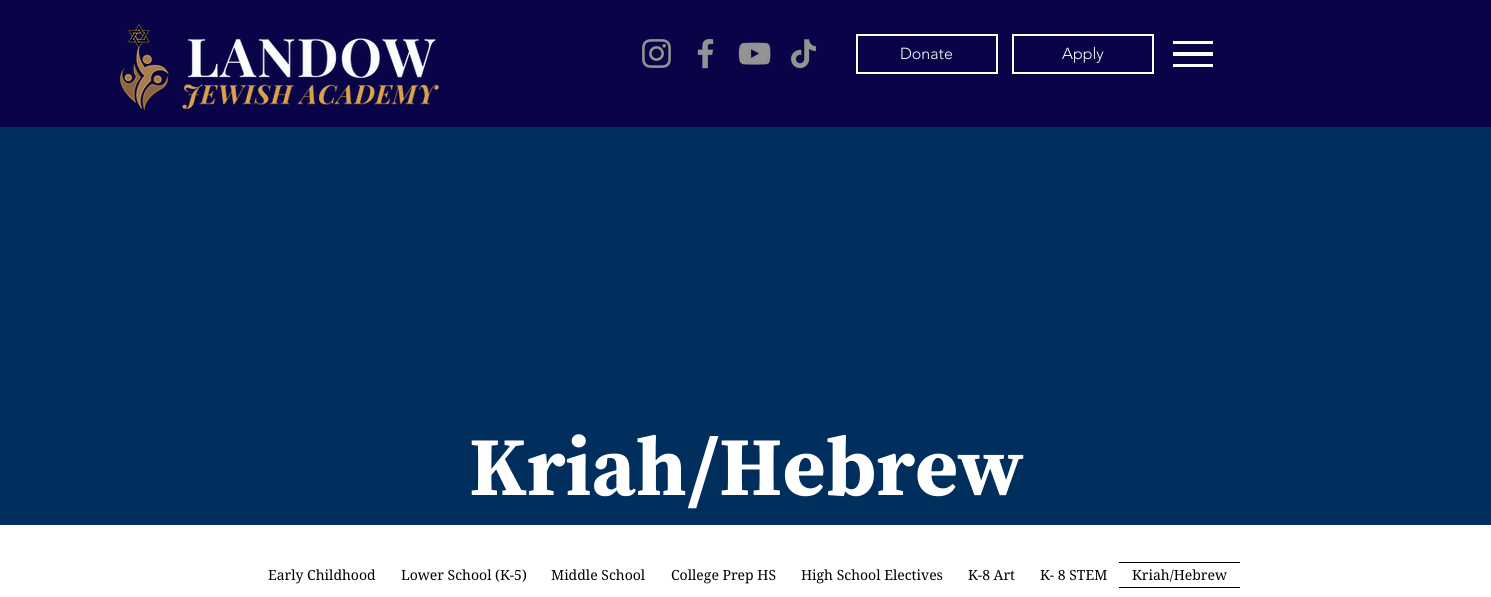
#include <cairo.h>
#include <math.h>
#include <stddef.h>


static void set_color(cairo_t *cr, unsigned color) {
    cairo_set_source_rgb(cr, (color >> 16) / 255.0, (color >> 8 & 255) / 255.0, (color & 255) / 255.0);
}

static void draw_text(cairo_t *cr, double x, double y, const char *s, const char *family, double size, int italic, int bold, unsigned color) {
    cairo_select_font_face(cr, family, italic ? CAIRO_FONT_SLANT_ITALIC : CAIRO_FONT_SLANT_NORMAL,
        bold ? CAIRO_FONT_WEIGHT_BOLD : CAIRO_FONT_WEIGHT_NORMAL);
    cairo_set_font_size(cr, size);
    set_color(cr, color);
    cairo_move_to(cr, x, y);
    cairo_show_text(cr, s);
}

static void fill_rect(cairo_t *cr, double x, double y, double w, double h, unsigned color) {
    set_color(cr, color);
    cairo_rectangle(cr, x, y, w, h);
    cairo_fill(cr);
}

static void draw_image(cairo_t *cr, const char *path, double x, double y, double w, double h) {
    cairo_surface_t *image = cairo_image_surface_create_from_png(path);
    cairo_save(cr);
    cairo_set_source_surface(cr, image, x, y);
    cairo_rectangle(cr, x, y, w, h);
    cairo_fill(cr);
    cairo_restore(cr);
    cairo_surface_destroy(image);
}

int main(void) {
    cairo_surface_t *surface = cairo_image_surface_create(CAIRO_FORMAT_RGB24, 1491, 597);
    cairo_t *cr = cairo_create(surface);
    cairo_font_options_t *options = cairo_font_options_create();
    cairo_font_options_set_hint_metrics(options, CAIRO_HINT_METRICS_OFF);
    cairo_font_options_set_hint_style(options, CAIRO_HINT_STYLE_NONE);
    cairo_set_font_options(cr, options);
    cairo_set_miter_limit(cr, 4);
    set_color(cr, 0xFFFFFF);
    cairo_paint(cr);
    fill_rect(cr, 0, 0, 1491, 127, 0x090447);
    draw_image(cr, "assets/img1.png", 119, 24, 320, 88);
    draw_image(cr, "assets/img2.png", 642, 39, 29, 29);
    draw_image(cr, "assets/img3.png", 697, 39, 17, 30);
    draw_image(cr, "assets/img4.png", 738, 42, 33, 23);
    draw_image(cr, "assets/img5.png", 790, 39, 27, 30);
    cairo_rectangle(cr, 857, 35, 140, 38);
    set_color(cr, 0xFFFFFF);
    cairo_stroke(cr);
    draw_text(cr, 900, 59, "Donate", "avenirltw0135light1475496 Light", 16, 0, 0, 0xFFFFFF);
    cairo_rectangle(cr, 1013, 35, 140, 38);
    cairo_stroke(cr);
    draw_text(cr, 1062, 59, "Apply", "avenirltw0135light1475496 Light", 16, 0, 0, 0xFFFFFF);
    fill_rect(cr, 1173, 64, 40, 3, 0xFFFFFF);
    fill_rect(cr, 1173, 41, 40, 3, 0xFFFFFF);
    fill_rect(cr, 1173, 52, 40, 4, 0xFFFFFF);
    fill_rect(cr, 0, 127, 1491, 398, 0x002E5D);
    draw_text(cr, 469, 495, "Kriah/Hebrew", "Source Serif Pro", 83, 0, 1, 0xFFFFFF);
    draw_text(cr, 268, 580, "Early Childhood", "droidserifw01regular", 14, 0, 0, 0x000000);
    draw_text(cr, 401, 580, "Lower School (K-5)", "droidserifw01regular", 14, 0, 0, 0x000000);
    draw_text(cr, 551, 580, "Middle School", "droidserifw01regular", 14, 0, 0, 0x000000);
    draw_text(cr, 671, 580, "College Prep HS", "droidserifw01regular", 14, 0, 0, 0x000000);
    draw_text(cr, 801, 580, "High School Electives", "droidserifw01regular", 14, 0, 0, 0x000000);
    draw_text(cr, 968, 580, "K-8 Art", "droidserifw01regular", 14, 0, 0, 0x000000);
    draw_text(cr, 1040, 580, "K- 8 STEM", "droidserifw01regular", 14, 0, 0, 0x000000);
    fill_rect(cr, 1119, 562, 121, 1, 0x000000);
    fill_rect(cr, 1119, 587, 121, 1, 0x000000);
    draw_text(cr, 1132, 580, "Kriah/Hebrew", "droidserifw01regular", 14, 0, 0, 0x000000);
    cairo_surface_write_to_png(surface, "output.png");
    cairo_font_options_destroy(options);
    cairo_destroy(cr);
    cairo_surface_destroy(surface);
    return 0;
}
